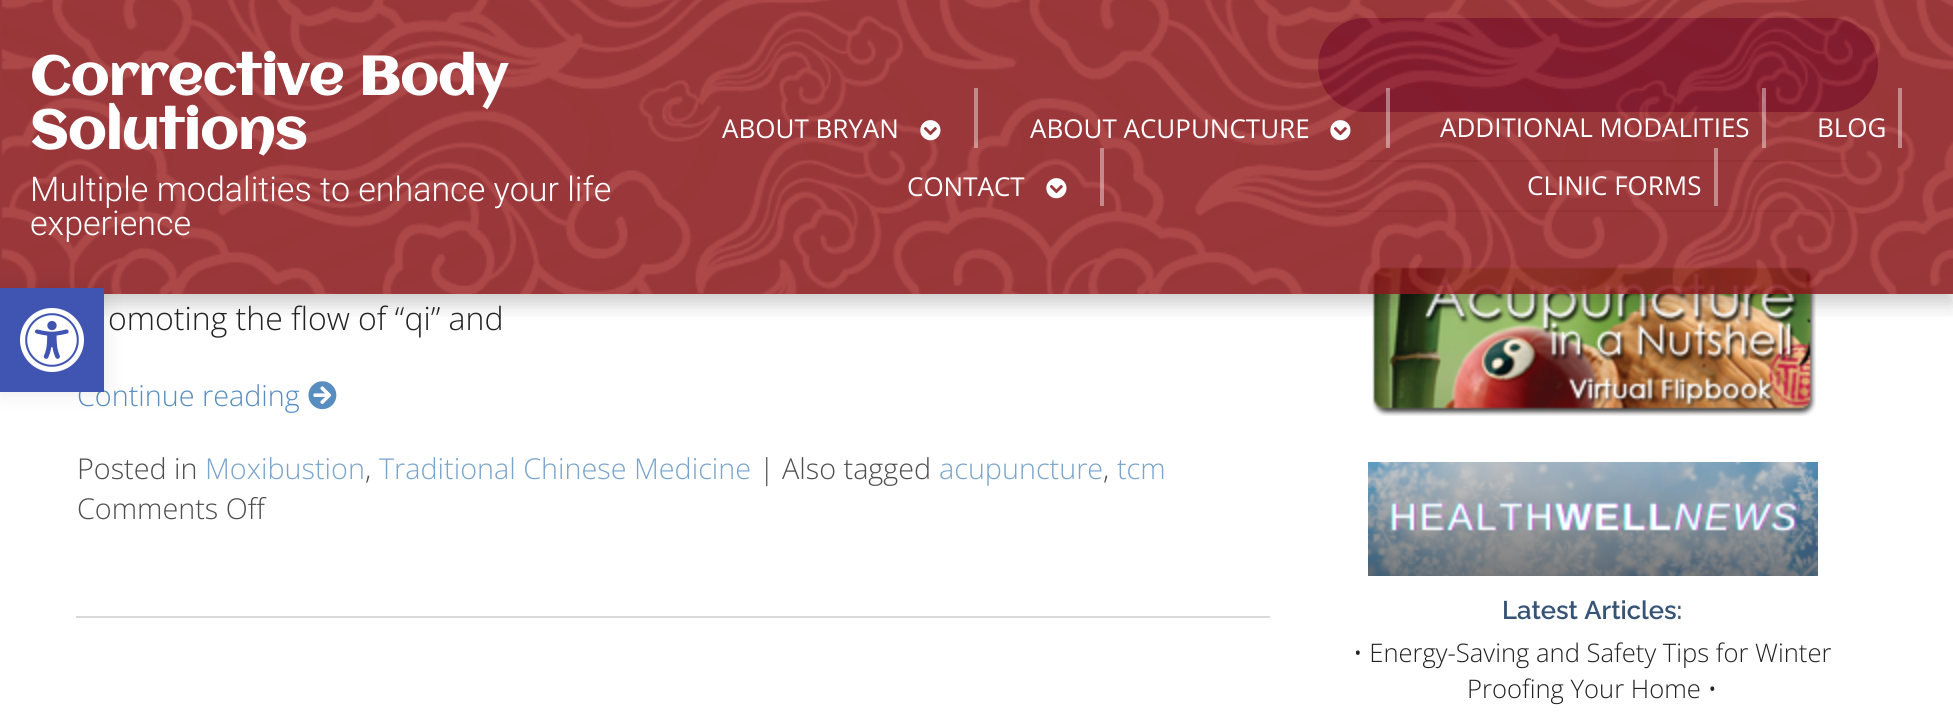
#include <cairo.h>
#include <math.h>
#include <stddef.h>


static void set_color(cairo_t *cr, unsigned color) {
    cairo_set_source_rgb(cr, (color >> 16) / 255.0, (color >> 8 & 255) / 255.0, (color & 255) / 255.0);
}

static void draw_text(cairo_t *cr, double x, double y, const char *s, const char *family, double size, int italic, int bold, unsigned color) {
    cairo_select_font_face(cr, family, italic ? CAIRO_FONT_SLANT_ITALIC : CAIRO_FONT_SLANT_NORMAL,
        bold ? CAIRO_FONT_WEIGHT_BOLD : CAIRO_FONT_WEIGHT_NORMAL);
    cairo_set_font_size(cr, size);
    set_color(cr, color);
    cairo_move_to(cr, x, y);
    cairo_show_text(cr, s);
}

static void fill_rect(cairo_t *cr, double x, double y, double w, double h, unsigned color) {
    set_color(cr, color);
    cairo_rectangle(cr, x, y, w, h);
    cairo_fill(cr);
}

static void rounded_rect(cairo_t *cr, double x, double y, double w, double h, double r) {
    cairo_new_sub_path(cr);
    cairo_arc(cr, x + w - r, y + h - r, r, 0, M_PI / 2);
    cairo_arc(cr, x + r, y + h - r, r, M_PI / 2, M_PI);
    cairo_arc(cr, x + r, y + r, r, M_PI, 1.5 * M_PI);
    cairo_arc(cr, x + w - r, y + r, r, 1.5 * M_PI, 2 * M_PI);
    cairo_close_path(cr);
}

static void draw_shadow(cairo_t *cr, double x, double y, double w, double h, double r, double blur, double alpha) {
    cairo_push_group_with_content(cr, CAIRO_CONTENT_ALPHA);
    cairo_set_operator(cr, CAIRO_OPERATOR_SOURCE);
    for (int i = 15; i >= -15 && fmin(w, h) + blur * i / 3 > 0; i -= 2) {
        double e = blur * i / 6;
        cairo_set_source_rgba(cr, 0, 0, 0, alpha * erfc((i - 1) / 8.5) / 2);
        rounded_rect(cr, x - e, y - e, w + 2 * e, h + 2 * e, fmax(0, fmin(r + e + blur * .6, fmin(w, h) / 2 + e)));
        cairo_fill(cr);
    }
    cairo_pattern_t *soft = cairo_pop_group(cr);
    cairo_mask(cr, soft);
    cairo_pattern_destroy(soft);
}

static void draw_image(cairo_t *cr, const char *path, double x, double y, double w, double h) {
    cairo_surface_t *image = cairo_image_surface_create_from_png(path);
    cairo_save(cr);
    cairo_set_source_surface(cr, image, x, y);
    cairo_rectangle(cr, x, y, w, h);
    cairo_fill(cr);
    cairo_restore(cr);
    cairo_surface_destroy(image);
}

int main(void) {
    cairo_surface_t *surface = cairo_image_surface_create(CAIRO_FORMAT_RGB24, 1953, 718);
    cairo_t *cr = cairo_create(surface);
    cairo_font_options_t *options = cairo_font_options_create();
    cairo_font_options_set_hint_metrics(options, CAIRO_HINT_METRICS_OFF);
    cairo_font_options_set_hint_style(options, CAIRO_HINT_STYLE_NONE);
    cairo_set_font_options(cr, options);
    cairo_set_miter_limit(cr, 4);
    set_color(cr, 0xFFFFFF);
    cairo_paint(cr);
    set_color(cr, 0x5040AB);
    rounded_rect(cr, 1318, 18, 560, 94, 47);
    cairo_fill(cr);
    fill_rect(cr, 1336, 160, 512, 2, 0xD9D9D9);
    fill_rect(cr, 1336, 210, 512, 2, 0xD9D9D9);
    draw_image(cr, "assets/img6.png", 1372, 267, 444, 149);
    cairo_save(cr);
    cairo_rectangle(cr, 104, 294, 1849, 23);
    cairo_clip(cr);
    set_color(cr, 0x000000);
    draw_shadow(cr, 0, 10, 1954, 294, 0, 10, 0.2);
    cairo_restore(cr);
    cairo_set_source_rgba(cr, 0.6, 0.059, 0.059, 0.84);
    cairo_rectangle(cr, 0, 0, 1953, 294);
    cairo_fill(cr);
    draw_image(cr, "assets/img1.png", 0, 0, 1953, 294);
    draw_text(cr, 30, 95, "Corrective Body", "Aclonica", 54, 0, 1, 0xFFFFFF);
    draw_text(cr, 30, 149, "Solutions", "Aclonica", 54, 0, 1, 0xFFFFFF);
    draw_text(cr, 30, 201, "Multiple modalities to enhance your life", "Roboto Light", 34, 0, 0, 0xFFFFFF);
    draw_text(cr, 30, 235, "experience", "Roboto Light", 34, 0, 0, 0xFFFFFF);
    cairo_set_source_rgba(cr, 1, 1, 1, 0.41);
    cairo_rectangle(cr, 974, 88, 4, 60);
    cairo_fill(cr);
    draw_text(cr, 722, 138, "ABOUT BRYAN", "Open Sans", 26, 0, 0, 0xFFFFFF);
    draw_image(cr, "assets/img2.png", 920, 120, 21, 21);
    cairo_set_source_rgba(cr, 1, 1, 1, 0.41);
    cairo_rectangle(cr, 1386, 88, 4, 60);
    cairo_fill(cr);
    draw_text(cr, 1030, 138, "ABOUT ACUPUNCTURE", "Open Sans", 26, 0, 0, 0xFFFFFF);
    draw_image(cr, "assets/img3.png", 1330, 120, 21, 21);
    cairo_set_source_rgba(cr, 1, 1, 1, 0.41);
    cairo_rectangle(cr, 1762, 88, 4, 60);
    cairo_fill(cr);
    draw_text(cr, 1440, 137, "ADDITIONAL MODALITIES", "Open Sans", 26, 0, 0, 0xFFFFFF);
    cairo_set_source_rgba(cr, 1, 1, 1, 0.41);
    cairo_rectangle(cr, 1898, 88, 4, 60);
    cairo_fill(cr);
    draw_text(cr, 1817, 137, "BLOG", "Open Sans", 26, 0, 0, 0xFFFFFF);
    cairo_set_source_rgba(cr, 1, 1, 1, 0.41);
    cairo_rectangle(cr, 1100, 148, 4, 58);
    cairo_fill(cr);
    draw_text(cr, 907, 196, "CONTACT", "Open Sans", 26, 0, 0, 0xFFFFFF);
    draw_image(cr, "assets/img4.png", 1046, 178, 21, 21);
    cairo_set_source_rgba(cr, 1, 1, 1, 0.41);
    cairo_rectangle(cr, 1714, 148, 4, 58);
    cairo_fill(cr);
    draw_text(cr, 1527, 195, "CLINIC FORMS", "Open Sans", 26, 0, 0, 0xFFFFFF);
    fill_rect(cr, 76, 616, 1194, 2, 0xD9D9D9);
    draw_text(cr, 108, 330, "omoting the flow of “qi” and", "Open Sans Light", 32, 0, 0, 0x222222);
    draw_text(cr, 77, 406, "Continue reading", "Open Sans Light", 28.75, 0, 0, 0x578DBF);
    draw_image(cr, "assets/img5.png", 308, 381, 29, 29);
    draw_text(cr, 77, 479, "Posted in", "Open Sans Light", 28.75, 0, 0, 0x4E4E4E);
    draw_text(cr, 205, 479, "Moxibustion", "Open Sans Light", 28.75, 0, 0, 0x79A4CC);
    draw_text(cr, 365, 479, ",", "Open Sans Light", 28.75, 0, 0, 0x4E4E4E);
    draw_text(cr, 379, 479, "Traditional Chinese Medicine", "Open Sans Light", 28.75, 0, 0, 0x79A4CC);
    draw_text(cr, 759, 479, "| Also tagged", "Open Sans Light", 28.75, 0, 0, 0x4E4E4E);
    draw_text(cr, 939, 479, "acupuncture", "Open Sans Light", 28.75, 0, 0, 0x79A4CC);
    draw_text(cr, 1103, 479, ",", "Open Sans Light", 28.75, 0, 0, 0x4E4E4E);
    draw_text(cr, 1117, 479, "tcm", "Open Sans Light", 28.75, 0, 0, 0x79A4CC);
    draw_text(cr, 77, 519, "Comments Off", "Open Sans Light", 28.75, 0, 0, 0x4E4E4E);
    draw_image(cr, "assets/img7.png", 1368, 462, 450, 114);
    draw_text(cr, 1502, 619, "Latest Articles:", "Raleway SemiBold", 25.6, 0, 0, 0x375477);
    draw_text(cr, 1353, 662, "• Energy-Saving and Safety Tips for Winter", "Open Sans Light", 25.6, 0, 0, 0x222222);
    draw_text(cr, 1467, 698, "Proofing Your Home •", "Open Sans Light", 25.6, 0, 0, 0x222222);
    set_color(cr, 0x000000);
    draw_shadow(cr, 0, 288, 104, 104, 0, 10, 0.1);
    fill_rect(cr, 0, 288, 104, 104, 0x4054B2);
    draw_image(cr, "assets/img8.png", 20, 308, 64, 64);
    cairo_surface_write_to_png(surface, "output.png");
    cairo_font_options_destroy(options);
    cairo_destroy(cr);
    cairo_surface_destroy(surface);
    return 0;
}
